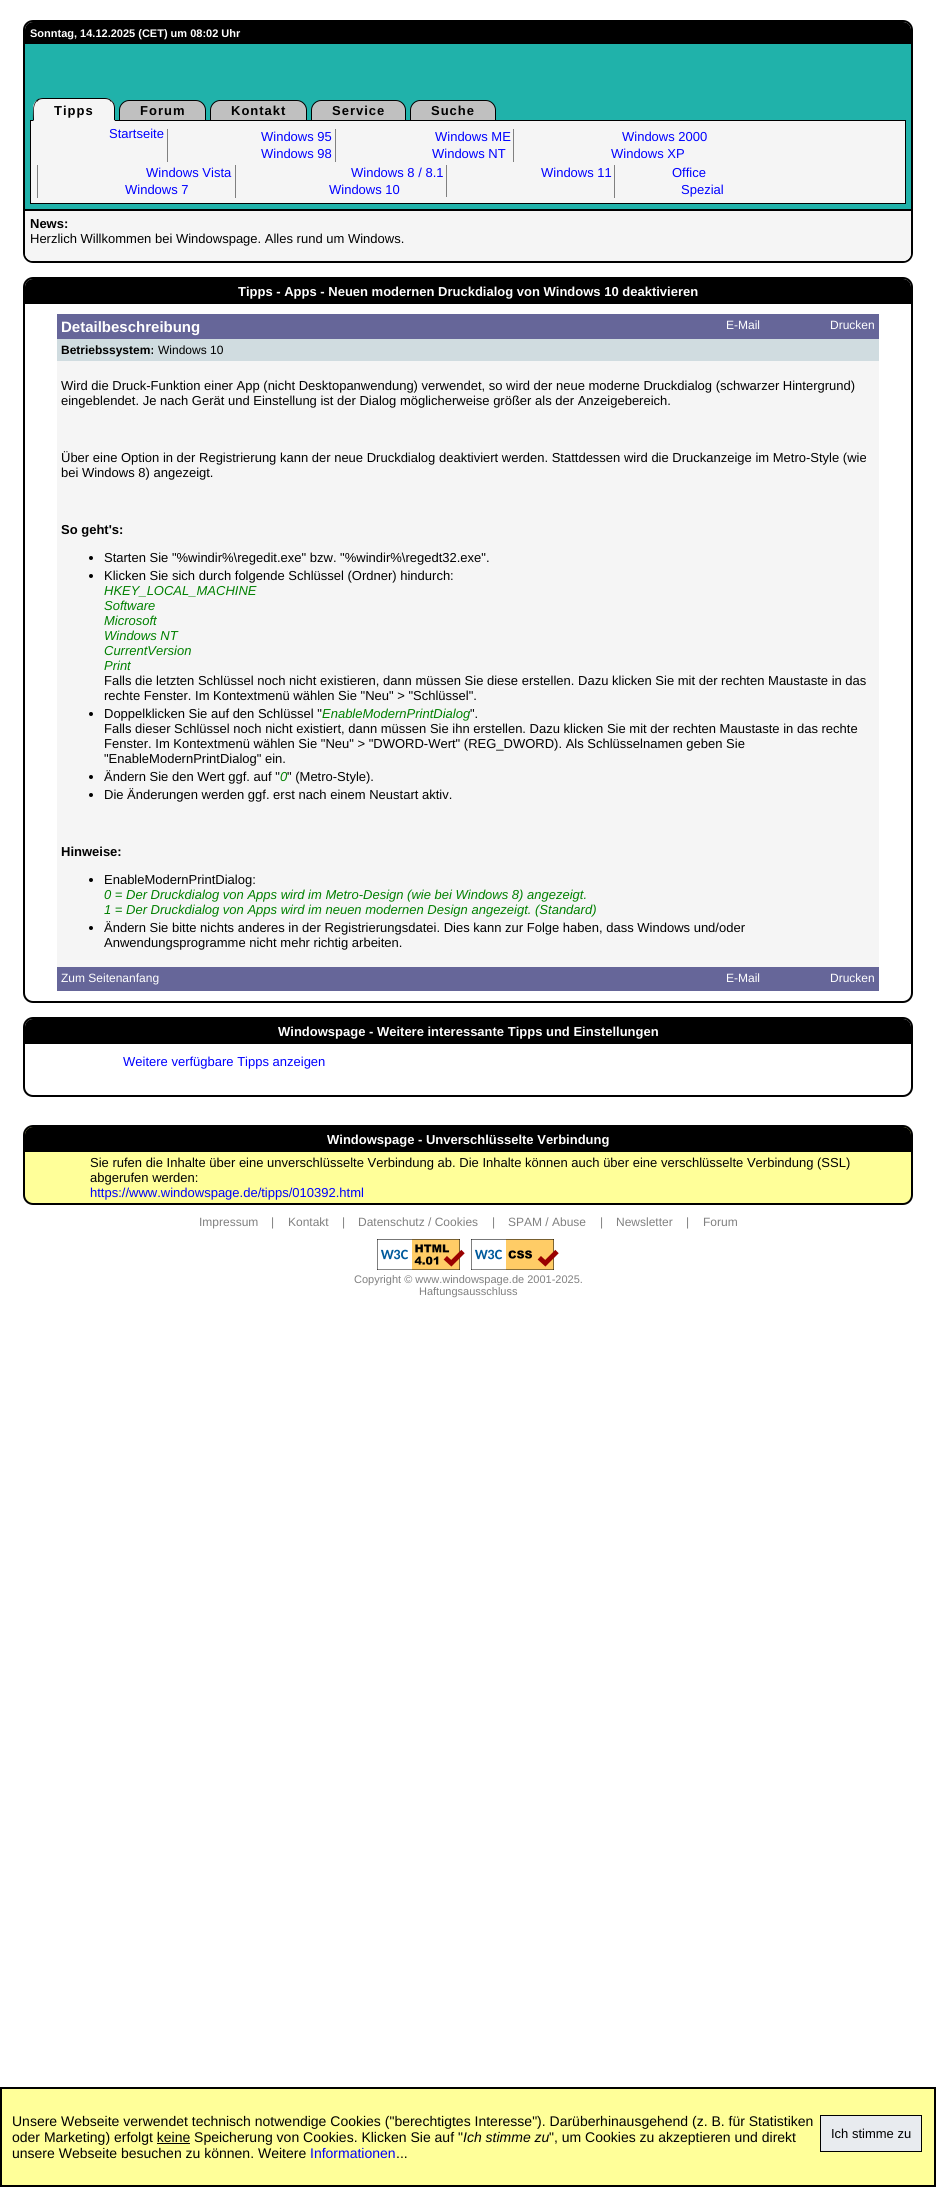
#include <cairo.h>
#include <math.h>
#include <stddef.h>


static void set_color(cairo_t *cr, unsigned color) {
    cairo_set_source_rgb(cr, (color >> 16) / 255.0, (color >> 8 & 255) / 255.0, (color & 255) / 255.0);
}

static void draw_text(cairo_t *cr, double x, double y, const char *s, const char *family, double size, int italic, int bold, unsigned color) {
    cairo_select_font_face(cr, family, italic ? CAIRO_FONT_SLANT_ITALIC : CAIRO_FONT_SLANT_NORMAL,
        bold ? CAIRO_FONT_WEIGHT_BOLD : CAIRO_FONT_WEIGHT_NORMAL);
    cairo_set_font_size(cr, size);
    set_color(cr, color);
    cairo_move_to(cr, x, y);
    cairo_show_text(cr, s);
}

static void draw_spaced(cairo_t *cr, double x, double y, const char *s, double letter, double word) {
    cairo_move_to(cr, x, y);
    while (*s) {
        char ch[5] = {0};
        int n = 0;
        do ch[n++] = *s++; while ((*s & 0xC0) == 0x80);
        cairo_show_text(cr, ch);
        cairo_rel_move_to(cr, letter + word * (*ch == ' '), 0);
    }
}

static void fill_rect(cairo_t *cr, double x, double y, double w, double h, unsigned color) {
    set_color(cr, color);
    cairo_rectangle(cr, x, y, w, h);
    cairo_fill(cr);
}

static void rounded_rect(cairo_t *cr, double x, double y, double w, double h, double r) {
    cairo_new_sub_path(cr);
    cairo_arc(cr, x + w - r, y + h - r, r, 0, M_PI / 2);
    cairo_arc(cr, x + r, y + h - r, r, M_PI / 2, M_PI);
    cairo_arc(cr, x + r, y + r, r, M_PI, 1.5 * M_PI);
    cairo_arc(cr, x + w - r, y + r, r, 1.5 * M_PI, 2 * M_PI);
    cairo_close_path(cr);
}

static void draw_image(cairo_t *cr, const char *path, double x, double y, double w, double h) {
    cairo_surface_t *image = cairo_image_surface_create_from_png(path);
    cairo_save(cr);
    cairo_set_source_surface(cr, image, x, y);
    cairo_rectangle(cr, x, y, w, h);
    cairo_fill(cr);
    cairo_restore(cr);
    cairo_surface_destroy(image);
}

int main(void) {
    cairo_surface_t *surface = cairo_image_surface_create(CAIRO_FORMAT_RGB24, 936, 2187);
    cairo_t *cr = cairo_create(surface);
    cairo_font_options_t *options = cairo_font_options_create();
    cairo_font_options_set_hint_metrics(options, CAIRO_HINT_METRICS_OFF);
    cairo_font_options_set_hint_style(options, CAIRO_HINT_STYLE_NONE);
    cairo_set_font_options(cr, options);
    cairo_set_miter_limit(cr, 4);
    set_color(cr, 0xFFFFFF);
    cairo_paint(cr);
    rounded_rect(cr, 24, 21, 888, 241, 9);
    set_color(cr, 0x000000);
    cairo_stroke(cr);
    cairo_new_path(cr);
    cairo_move_to(cr, 33, 22);
    cairo_line_to(cr, 903, 22);
    cairo_curve_to(cr, 907.5, 22, 911, 25.5, 911, 30);
    cairo_line_to(cr, 911, 44);
    cairo_line_to(cr, 25, 44);
    cairo_line_to(cr, 25, 30);
    cairo_curve_to(cr, 25, 25.5, 28.5, 22, 33, 22);
    cairo_close_path(cr);
    cairo_fill(cr);
    draw_text(cr, 30, 37, "Sonntag, 14.12.2025 (CET) um 08:02 Uhr", "Liberation Sans", 11, 0, 1, 0xFFFFFF);
    fill_rect(cr, 25, 44, 886, 165, 0x20B2AA);
    fill_rect(cr, 30, 120, 876, 1, 0x000000);
    set_color(cr, 0xF5F5F5);
    cairo_new_path(cr);
    cairo_move_to(cr, 43, 98);
    cairo_line_to(cr, 105, 98);
    cairo_curve_to(cr, 110.5, 98, 115, 102.5, 115, 108);
    cairo_line_to(cr, 115, 121);
    cairo_line_to(cr, 33, 121);
    cairo_line_to(cr, 33, 108);
    cairo_curve_to(cr, 33, 102.5, 37.5, 98, 43, 98);
    cairo_close_path(cr);
    cairo_fill(cr);
    cairo_set_font_size(cr, 13);
    set_color(cr, 0x000000);
    draw_spaced(cr, 54, 115, "Tipps", 1, 0);
    cairo_new_path(cr);
    cairo_move_to(cr, 43, 98);
    cairo_curve_to(cr, 40, 98, 37, 99, 36, 101);
    cairo_line_to(cr, 37, 102);
    cairo_curve_to(cr, 38, 100, 40, 99, 43, 99);
    cairo_line_to(cr, 105, 99);
    cairo_curve_to(cr, 108, 99, 110, 100, 111, 102);
    cairo_line_to(cr, 112, 101);
    cairo_curve_to(cr, 110, 99, 108, 98, 105, 98);
    cairo_close_path(cr);
    cairo_fill(cr);
    cairo_new_path(cr);
    cairo_move_to(cr, 115, 121);
    cairo_line_to(cr, 115, 108);
    cairo_curve_to(cr, 115, 105, 114, 102.5, 112, 101);
    cairo_line_to(cr, 111.5, 101.5);
    cairo_curve_to(cr, 113, 103, 114, 105.5, 114, 108);
    cairo_line_to(cr, 114, 120);
    cairo_close_path(cr);
    cairo_fill(cr);
    set_color(cr, 0xF5F5F5);
    cairo_new_path(cr);
    cairo_move_to(cr, 115, 121);
    cairo_line_to(cr, 114, 120);
    cairo_line_to(cr, 34, 120);
    cairo_line_to(cr, 33, 121);
    cairo_close_path(cr);
    cairo_fill(cr);
    set_color(cr, 0x000000);
    cairo_new_path(cr);
    cairo_move_to(cr, 33, 121);
    cairo_curve_to(cr, 33, 115, 32, 106, 36, 101);
    cairo_line_to(cr, 36.5, 101.5);
    cairo_curve_to(cr, 32.5, 106.5, 34, 114, 34, 120);
    cairo_close_path(cr);
    cairo_fill(cr);
    set_color(cr, 0xC0C0C0);
    cairo_new_path(cr);
    cairo_move_to(cr, 129, 100.5);
    cairo_line_to(cr, 196, 100.5);
    cairo_curve_to(cr, 201, 100.5, 205.5, 105, 205.5, 110);
    cairo_line_to(cr, 205.5, 120.5);
    cairo_line_to(cr, 119.5, 120.5);
    cairo_line_to(cr, 119.5, 110);
    cairo_curve_to(cr, 119.5, 105, 124, 100.5, 129, 100.5);
    cairo_close_path(cr);
    cairo_fill_preserve(cr);
    set_color(cr, 0x000000);
    cairo_set_line_width(cr, 1);
    cairo_stroke(cr);
    draw_spaced(cr, 140, 115, "Forum", 1, 0);
    set_color(cr, 0xC0C0C0);
    cairo_new_path(cr);
    cairo_move_to(cr, 220, 100.5);
    cairo_line_to(cr, 297, 100.5);
    cairo_curve_to(cr, 302, 100.5, 306.5, 105, 306.5, 110);
    cairo_line_to(cr, 306.5, 120.5);
    cairo_line_to(cr, 210.5, 120.5);
    cairo_line_to(cr, 210.5, 110);
    cairo_curve_to(cr, 210.5, 105, 215, 100.5, 220, 100.5);
    cairo_close_path(cr);
    cairo_fill_preserve(cr);
    set_color(cr, 0x000000);
    cairo_stroke(cr);
    draw_spaced(cr, 231, 115, "Kontakt", 1, 0);
    set_color(cr, 0xC0C0C0);
    cairo_new_path(cr);
    cairo_move_to(cr, 321, 100.5);
    cairo_line_to(cr, 396, 100.5);
    cairo_curve_to(cr, 401, 100.5, 405.5, 105, 405.5, 110);
    cairo_line_to(cr, 405.5, 120.5);
    cairo_line_to(cr, 311.5, 120.5);
    cairo_line_to(cr, 311.5, 110);
    cairo_curve_to(cr, 311.5, 105, 316, 100.5, 321, 100.5);
    cairo_close_path(cr);
    cairo_fill_preserve(cr);
    set_color(cr, 0x000000);
    cairo_stroke(cr);
    draw_spaced(cr, 332, 115, "Service", 1, 0);
    set_color(cr, 0xC0C0C0);
    cairo_new_path(cr);
    cairo_move_to(cr, 420, 100.5);
    cairo_line_to(cr, 486, 100.5);
    cairo_curve_to(cr, 491, 100.5, 495.5, 105, 495.5, 110);
    cairo_line_to(cr, 495.5, 120.5);
    cairo_line_to(cr, 410.5, 120.5);
    cairo_line_to(cr, 410.5, 110);
    cairo_curve_to(cr, 410.5, 105, 415, 100.5, 420, 100.5);
    cairo_close_path(cr);
    cairo_fill_preserve(cr);
    set_color(cr, 0x000000);
    cairo_stroke(cr);
    draw_spaced(cr, 431, 115, "Suche", 1, 0);
    fill_rect(cr, 31, 121, 874, 82, 0xF5F5F5);
    fill_rect(cr, 905, 121, 1, 83, 0x000000);
    fill_rect(cr, 30, 203, 876, 1, 0x000000);
    fill_rect(cr, 30, 121, 1, 83, 0x000000);
    draw_text(cr, 109, 138, "Startseite", "Liberation Sans", 13, 0, 0, 0x0000FF);
    fill_rect(cr, 167, 129, 1, 33, 0x808080);
    draw_text(cr, 261, 141, "Windows 95", "Liberation Sans", 13, 0, 0, 0x0000FF);
    draw_text(cr, 261, 158, "Windows 98", "Liberation Sans", 13, 0, 0, 0x0000FF);
    fill_rect(cr, 335, 129, 1, 33, 0x808080);
    draw_text(cr, 435, 141, "Windows ME", "Liberation Sans", 13, 0, 0, 0x0000FF);
    draw_text(cr, 432, 158, "Windows NT", "Liberation Sans", 13, 0, 0, 0x0000FF);
    fill_rect(cr, 513, 129, 1, 33, 0x808080);
    draw_text(cr, 622, 141, "Windows 2000", "Liberation Sans", 13, 0, 0, 0x0000FF);
    draw_text(cr, 611, 158, "Windows XP", "Liberation Sans", 13, 0, 0, 0x0000FF);
    fill_rect(cr, 37, 165, 1, 33, 0x808080);
    draw_text(cr, 146, 177, "Windows Vista", "Liberation Sans", 13, 0, 0, 0x0000FF);
    draw_text(cr, 125, 194, "Windows 7", "Liberation Sans", 13, 0, 0, 0x0000FF);
    fill_rect(cr, 235, 165, 1, 33, 0x808080);
    draw_text(cr, 351, 177, "Windows 8 / 8.1", "Liberation Sans", 13, 0, 0, 0x0000FF);
    draw_text(cr, 329, 194, "Windows 10", "Liberation Sans", 13, 0, 0, 0x0000FF);
    fill_rect(cr, 446, 165, 1, 32, 0x808080);
    draw_text(cr, 541, 177, "Windows 11", "Liberation Sans", 13, 0, 0, 0x0000FF);
    fill_rect(cr, 614, 165, 1, 33, 0x808080);
    draw_text(cr, 672, 177, "Office", "Liberation Sans", 13, 0, 0, 0x0000FF);
    draw_text(cr, 681, 194, "Spezial", "Liberation Sans", 13, 0, 0, 0x0000FF);
    set_color(cr, 0xF5F5F5);
    cairo_new_path(cr);
    cairo_move_to(cr, 25, 209);
    cairo_line_to(cr, 911, 209);
    cairo_line_to(cr, 911, 253);
    cairo_curve_to(cr, 911, 257.5, 907.5, 261, 903, 261);
    cairo_line_to(cr, 33, 261);
    cairo_curve_to(cr, 28.5, 261, 25, 257.5, 25, 253);
    cairo_close_path(cr);
    cairo_fill(cr);
    fill_rect(cr, 25, 209, 886, 2, 0x000000);
    draw_text(cr, 30, 228, "News:", "Liberation Sans", 13, 0, 1, 0x000000);
    draw_text(cr, 30, 243, "Herzlich Willkommen bei Windowspage. Alles rund um Windows.", "Liberation Sans", 13, 0, 0, 0x000000);
    rounded_rect(cr, 24, 278, 888, 724, 9);
    cairo_set_line_width(cr, 2);
    cairo_stroke(cr);
    cairo_new_path(cr);
    cairo_move_to(cr, 33, 279);
    cairo_line_to(cr, 903, 279);
    cairo_curve_to(cr, 907.5, 279, 911, 282.5, 911, 287);
    cairo_line_to(cr, 911, 304);
    cairo_line_to(cr, 25, 304);
    cairo_line_to(cr, 25, 287);
    cairo_curve_to(cr, 25, 282.5, 28.5, 279, 33, 279);
    cairo_close_path(cr);
    cairo_fill(cr);
    draw_text(cr, 238, 296, "Tipps - Apps - Neuen modernen Druckdialog von Windows 10 deaktivieren", "Liberation Sans", 13, 0, 1, 0xFFFFFF);
    fill_rect(cr, 57, 314, 822, 25, 0x666699);
    draw_text(cr, 61, 332, "Detailbeschreibung", "Liberation Sans", 15, 0, 1, 0xFFFFFF);
    draw_text(cr, 726, 329, "E-Mail", "Liberation Sans", 12, 0, 0, 0xFFFFFF);
    draw_text(cr, 830, 329, "Drucken", "Liberation Sans", 12, 0, 0, 0xFFFFFF);
    fill_rect(cr, 57, 339, 822, 22, 0xD0DCE0);
    draw_text(cr, 61, 354, "Betriebssystem:", "Liberation Sans", 12, 0, 1, 0x000000);
    draw_text(cr, 158, 354, "Windows 10", "Liberation Sans", 12, 0, 0, 0x000000);
    fill_rect(cr, 57, 361, 822, 606, 0xF5F5F5);
    draw_text(cr, 61, 390, "Wird die Druck-Funktion einer App (nicht Desktopanwendung) verwendet, so wird der neue moderne Druckdialog (schwarzer Hintergrund)", "Liberation Sans", 13, 0, 0, 0x000000);
    draw_text(cr, 61, 405, "eingeblendet. Je nach Gerät und Einstellung ist der Dialog möglicherweise größer als der Anzeigebereich.", "Liberation Sans", 13, 0, 0, 0x000000);
    draw_text(cr, 61, 462, "Über eine Option in der Registrierung kann der neue Druckdialog deaktiviert werden. Stattdessen wird die Druckanzeige im Metro-Style (wie", "Liberation Sans", 13, 0, 0, 0x000000);
    draw_text(cr, 61, 477, "bei Windows 8) angezeigt.", "Liberation Sans", 13, 0, 0, 0x000000);
    draw_text(cr, 61, 534, "So geht's:", "Liberation Sans", 13, 0, 1, 0x000000);
    cairo_new_path(cr);
    cairo_arc(cr, 91, 558, 2, 0, 2 * M_PI);
    cairo_fill(cr);
    draw_text(cr, 104, 562, "Starten Sie \"%windir%\\regedit.exe\" bzw. \"%windir%\\regedt32.exe\".", "Liberation Sans", 13, 0, 0, 0x000000);
    cairo_new_path(cr);
    cairo_arc(cr, 91, 576, 2, 0, 2 * M_PI);
    cairo_fill(cr);
    draw_text(cr, 104, 580, "Klicken Sie sich durch folgende Schlüssel (Ordner) hindurch:", "Liberation Sans", 13, 0, 0, 0x000000);
    draw_text(cr, 104, 595, "HKEY_LOCAL_MACHINE", "Liberation Sans", 13, 1, 0, 0x008000);
    draw_text(cr, 104, 610, "Software", "Liberation Sans", 13, 1, 0, 0x008000);
    draw_text(cr, 104, 625, "Microsoft", "Liberation Sans", 13, 1, 0, 0x008000);
    draw_text(cr, 104, 640, "Windows NT", "Liberation Sans", 13, 1, 0, 0x008000);
    draw_text(cr, 104, 655, "CurrentVersion", "Liberation Sans", 13, 1, 0, 0x008000);
    draw_text(cr, 104, 670, "Print", "Liberation Sans", 13, 1, 0, 0x008000);
    draw_text(cr, 104, 685, "Falls die letzten Schlüssel noch nicht existieren, dann müssen Sie diese erstellen. Dazu klicken Sie mit der rechten Maustaste in das", "Liberation Sans", 13, 0, 0, 0x000000);
    draw_text(cr, 104, 700, "rechte Fenster. Im Kontextmenü wählen Sie \"Neu\" > \"Schlüssel\".", "Liberation Sans", 13, 0, 0, 0x000000);
    cairo_new_path(cr);
    cairo_arc(cr, 91, 714, 2, 0, 2 * M_PI);
    cairo_fill(cr);
    draw_text(cr, 104, 718, "Doppelklicken Sie auf den Schlüssel \"", "Liberation Sans", 13, 0, 0, 0x000000);
    draw_text(cr, 322, 718, "EnableModernPrintDialog", "Liberation Sans", 13, 1, 0, 0x008000);
    draw_text(cr, 470, 718, "\".", "Liberation Sans", 13, 0, 0, 0x000000);
    draw_text(cr, 104, 733, "Falls dieser Schlüssel noch nicht existiert, dann müssen Sie ihn erstellen. Dazu klicken Sie mit der rechten Maustaste in das rechte", "Liberation Sans", 13, 0, 0, 0x000000);
    draw_text(cr, 104, 748, "Fenster. Im Kontextmenü wählen Sie \"Neu\" > \"DWORD-Wert\" (REG_DWORD). Als Schlüsselnamen geben Sie", "Liberation Sans", 13, 0, 0, 0x000000);
    draw_text(cr, 104, 763, "\"EnableModernPrintDialog\" ein.", "Liberation Sans", 13, 0, 0, 0x000000);
    cairo_new_path(cr);
    cairo_arc(cr, 91, 777, 2, 0, 2 * M_PI);
    cairo_fill(cr);
    draw_text(cr, 104, 781, "Ändern Sie den Wert ggf. auf \"", "Liberation Sans", 13, 0, 0, 0x000000);
    draw_text(cr, 280, 781, "0", "Liberation Sans", 13, 1, 0, 0x008000);
    draw_text(cr, 287, 781, "\" (Metro-Style).", "Liberation Sans", 13, 0, 0, 0x000000);
    cairo_new_path(cr);
    cairo_arc(cr, 91, 795, 2, 0, 2 * M_PI);
    cairo_fill(cr);
    draw_text(cr, 104, 799, "Die Änderungen werden ggf. erst nach einem Neustart aktiv.", "Liberation Sans", 13, 0, 0, 0x000000);
    draw_text(cr, 61, 856, "Hinweise:", "Liberation Sans", 13, 0, 1, 0x000000);
    cairo_new_path(cr);
    cairo_arc(cr, 91, 880, 2, 0, 2 * M_PI);
    cairo_fill(cr);
    draw_text(cr, 104, 884, "EnableModernPrintDialog:", "Liberation Sans", 13, 0, 0, 0x000000);
    draw_text(cr, 104, 899, "0 = Der Druckdialog von Apps wird im Metro-Design (wie bei Windows 8) angezeigt.", "Liberation Sans", 13, 1, 0, 0x008000);
    draw_text(cr, 104, 914, "1 = Der Druckdialog von Apps wird im neuen modernen Design angezeigt. (Standard)", "Liberation Sans", 13, 1, 0, 0x008000);
    set_color(cr, 0x000000);
    cairo_new_path(cr);
    cairo_arc(cr, 91, 928, 2, 0, 2 * M_PI);
    cairo_fill(cr);
    draw_text(cr, 104, 932, "Ändern Sie bitte nichts anderes in der Registrierungsdatei. Dies kann zur Folge haben, dass Windows und/oder", "Liberation Sans", 13, 0, 0, 0x000000);
    draw_text(cr, 104, 947, "Anwendungsprogramme nicht mehr richtig arbeiten.", "Liberation Sans", 13, 0, 0, 0x000000);
    fill_rect(cr, 57, 967, 822, 24, 0x666699);
    draw_text(cr, 61, 982, "Zum Seitenanfang", "Liberation Sans", 12, 0, 0, 0xFFFFFF);
    draw_text(cr, 726, 982, "E-Mail", "Liberation Sans", 12, 0, 0, 0xFFFFFF);
    draw_text(cr, 830, 982, "Drucken", "Liberation Sans", 12, 0, 0, 0xFFFFFF);
    rounded_rect(cr, 24, 1018, 888, 78, 9);
    set_color(cr, 0x000000);
    cairo_stroke(cr);
    cairo_new_path(cr);
    cairo_move_to(cr, 33, 1019);
    cairo_line_to(cr, 903, 1019);
    cairo_curve_to(cr, 907.5, 1019, 911, 1022.5, 911, 1027);
    cairo_line_to(cr, 911, 1044);
    cairo_line_to(cr, 25, 1044);
    cairo_line_to(cr, 25, 1027);
    cairo_curve_to(cr, 25, 1022.5, 28.5, 1019, 33, 1019);
    cairo_close_path(cr);
    cairo_fill(cr);
    draw_text(cr, 278, 1036, "Windowspage - Weitere interessante Tipps und Einstellungen", "Liberation Sans", 13, 0, 1, 0xFFFFFF);
    draw_text(cr, 123, 1066, "Weitere verfügbare Tipps anzeigen", "Liberation Sans", 13, 0, 0, 0x0000FF);
    set_color(cr, 0xFFFF99);
    rounded_rect(cr, 24, 1126, 888, 78, 9);
    cairo_fill_preserve(cr);
    set_color(cr, 0x000000);
    cairo_stroke(cr);
    cairo_new_path(cr);
    cairo_move_to(cr, 33, 1127);
    cairo_line_to(cr, 903, 1127);
    cairo_curve_to(cr, 907.5, 1127, 911, 1130.5, 911, 1135);
    cairo_line_to(cr, 911, 1152);
    cairo_line_to(cr, 25, 1152);
    cairo_line_to(cr, 25, 1135);
    cairo_curve_to(cr, 25, 1130.5, 28.5, 1127, 33, 1127);
    cairo_close_path(cr);
    cairo_fill(cr);
    draw_text(cr, 327, 1144, "Windowspage - Unverschlüsselte Verbindung", "Liberation Sans", 13, 0, 1, 0xFFFFFF);
    draw_text(cr, 90, 1167, "Sie rufen die Inhalte über eine unverschlüsselte Verbindung ab. Die Inhalte können auch über eine verschlüsselte Verbindung (SSL)", "Liberation Sans", 13, 0, 0, 0x000000);
    draw_text(cr, 90, 1182, "abgerufen werden:", "Liberation Sans", 13, 0, 0, 0x000000);
    draw_text(cr, 90, 1197, "https://www.windowspage.de/tipps/010392.html", "Liberation Sans", 13, 0, 0, 0x0000FF);
    draw_text(cr, 199, 1226, "Impressum", "Liberation Sans", 12, 0, 0, 0x808080);
    draw_text(cr, 271, 1226, "|", "Liberation Sans", 12, 0, 0, 0x808080);
    draw_text(cr, 288, 1226, "Kontakt", "Liberation Sans", 12, 0, 0, 0x808080);
    draw_text(cr, 342, 1226, "|", "Liberation Sans", 12, 0, 0, 0x808080);
    draw_text(cr, 358, 1226, "Datenschutz / Cookies", "Liberation Sans", 12, 0, 0, 0x808080);
    draw_text(cr, 492, 1226, "|", "Liberation Sans", 12, 0, 0, 0x808080);
    draw_text(cr, 508, 1226, "SPAM / Abuse", "Liberation Sans", 12, 0, 0, 0x808080);
    draw_text(cr, 600, 1226, "|", "Liberation Sans", 12, 0, 0, 0x808080);
    draw_text(cr, 616, 1226, "Newsletter", "Liberation Sans", 12, 0, 0, 0x808080);
    draw_text(cr, 686, 1226, "|", "Liberation Sans", 12, 0, 0, 0x808080);
    draw_text(cr, 703, 1226, "Forum", "Liberation Sans", 12, 0, 0, 0x808080);
    draw_image(cr, "assets/img1.png", 377, 1239, 88, 31);
    draw_image(cr, "assets/img2.png", 471, 1239, 88, 31);
    draw_text(cr, 354, 1283, "Copyright © www.windowspage.de 2001-2025.", "Liberation Sans", 11, 0, 0, 0x808080);
    draw_text(cr, 419, 1295, "Haftungsausschluss", "Liberation Sans", 11, 0, 0, 0x808080);
    set_color(cr, 0xFFFF99);
    cairo_rectangle(cr, 1, 2088, 934, 98);
    cairo_fill_preserve(cr);
    set_color(cr, 0x000000);
    cairo_stroke(cr);
    draw_text(cr, 12, 2126, "Unsere Webseite verwendet technisch notwendige Cookies (\"berechtigtes Interesse\"). Darüberhinausgehend (z. B. für Statistiken", "Liberation Sans", 14, 0, 0, 0x000000);
    draw_text(cr, 12, 2142, "oder Marketing) erfolgt keine Speicherung von Cookies. Klicken Sie auf \"", "Liberation Sans", 14, 0, 0, 0x000000);
    draw_text(cr, 463, 2142, "Ich stimme zu", "Liberation Sans", 14, 1, 0, 0x000000);
    draw_text(cr, 549, 2142, "\", um Cookies zu akzeptieren und direkt", "Liberation Sans", 14, 0, 0, 0x000000);
    fill_rect(cr, 157, 2143, 33, 1, 0x000000);
    draw_text(cr, 12, 2158, "unsere Webseite besuchen zu können. Weitere", "Liberation Sans", 14, 0, 0, 0x000000);
    draw_text(cr, 310, 2158, "Informationen", "Liberation Sans", 14, 0, 0, 0x0000FF);
    draw_text(cr, 396, 2158, "...", "Liberation Sans", 14, 0, 0, 0x000000);
    set_color(cr, 0xE8EBEF);
    cairo_rectangle(cr, 820.5, 2115.5, 101, 36);
    cairo_fill_preserve(cr);
    set_color(cr, 0x000000);
    cairo_set_line_width(cr, 1);
    cairo_stroke(cr);
    draw_text(cr, 831, 2138, "Ich stimme zu", "Liberation Sans", 13, 0, 0, 0x000000);
    cairo_surface_write_to_png(surface, "output.png");
    cairo_font_options_destroy(options);
    cairo_destroy(cr);
    cairo_surface_destroy(surface);
    return 0;
}
